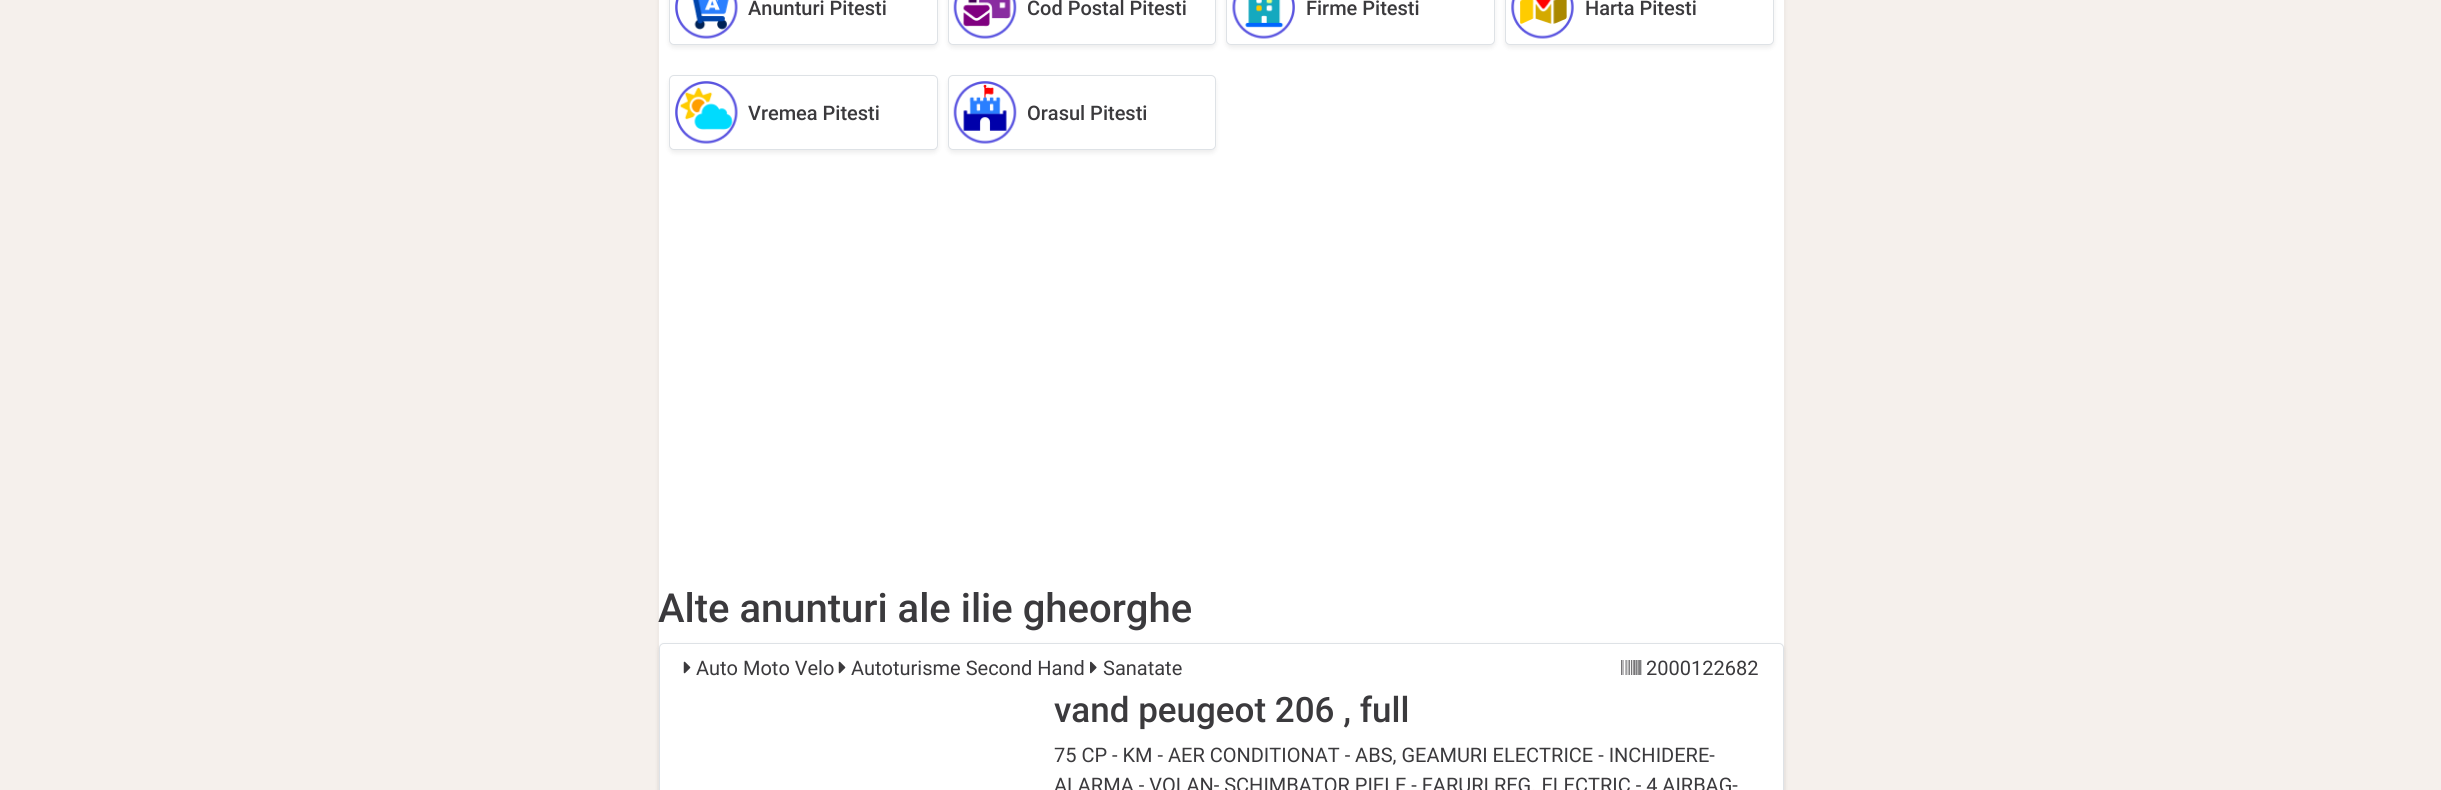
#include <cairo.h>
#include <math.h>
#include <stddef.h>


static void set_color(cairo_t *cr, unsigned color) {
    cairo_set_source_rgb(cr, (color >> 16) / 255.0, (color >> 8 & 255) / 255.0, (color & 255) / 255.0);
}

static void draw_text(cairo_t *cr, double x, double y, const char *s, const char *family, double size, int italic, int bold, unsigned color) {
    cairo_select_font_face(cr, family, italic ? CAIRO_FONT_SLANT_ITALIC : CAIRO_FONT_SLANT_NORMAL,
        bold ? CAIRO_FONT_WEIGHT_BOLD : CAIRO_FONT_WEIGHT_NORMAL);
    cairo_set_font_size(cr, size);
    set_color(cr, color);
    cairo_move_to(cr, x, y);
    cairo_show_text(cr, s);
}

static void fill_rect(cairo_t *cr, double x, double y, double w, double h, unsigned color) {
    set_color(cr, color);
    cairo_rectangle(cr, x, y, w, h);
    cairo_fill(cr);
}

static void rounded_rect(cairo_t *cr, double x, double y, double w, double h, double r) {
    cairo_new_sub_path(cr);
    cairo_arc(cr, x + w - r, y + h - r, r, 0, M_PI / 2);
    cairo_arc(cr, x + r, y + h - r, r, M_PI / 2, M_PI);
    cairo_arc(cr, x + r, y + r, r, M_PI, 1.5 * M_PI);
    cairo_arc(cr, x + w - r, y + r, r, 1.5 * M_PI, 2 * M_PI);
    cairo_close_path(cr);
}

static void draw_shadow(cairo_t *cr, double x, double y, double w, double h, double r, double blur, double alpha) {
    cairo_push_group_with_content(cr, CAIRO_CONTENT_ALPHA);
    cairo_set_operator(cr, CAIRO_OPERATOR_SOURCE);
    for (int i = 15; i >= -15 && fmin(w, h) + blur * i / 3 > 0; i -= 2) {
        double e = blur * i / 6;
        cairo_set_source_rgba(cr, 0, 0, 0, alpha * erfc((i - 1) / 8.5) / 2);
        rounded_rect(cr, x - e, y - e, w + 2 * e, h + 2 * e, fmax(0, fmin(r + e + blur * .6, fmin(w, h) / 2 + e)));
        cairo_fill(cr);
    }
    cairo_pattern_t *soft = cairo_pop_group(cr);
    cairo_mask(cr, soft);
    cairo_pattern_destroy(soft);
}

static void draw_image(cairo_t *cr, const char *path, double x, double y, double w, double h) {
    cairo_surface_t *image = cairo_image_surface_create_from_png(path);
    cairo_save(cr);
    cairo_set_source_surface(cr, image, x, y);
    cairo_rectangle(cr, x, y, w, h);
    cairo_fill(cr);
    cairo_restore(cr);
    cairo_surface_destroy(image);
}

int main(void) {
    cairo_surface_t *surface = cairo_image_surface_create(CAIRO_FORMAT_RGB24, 2441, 790);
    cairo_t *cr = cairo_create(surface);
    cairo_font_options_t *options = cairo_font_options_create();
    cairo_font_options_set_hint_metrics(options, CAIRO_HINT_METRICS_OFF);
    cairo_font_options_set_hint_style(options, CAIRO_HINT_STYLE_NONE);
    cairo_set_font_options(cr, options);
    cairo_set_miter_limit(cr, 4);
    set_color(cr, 0xF5F0EC);
    cairo_paint(cr);
    set_color(cr, 0x000000);
    draw_shadow(cr, 659, -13, 1125, 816, 5, 2.5, 0.07);
    fill_rect(cr, 659, 0, 1125, 648, 0xFFFFFF);
    set_color(cr, 0x000000);
    draw_shadow(cr, 669, -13, 269, 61, 5, 2.5, 0.07);
    set_color(cr, 0xFFFFFF);
    rounded_rect(cr, 669.5, -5.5, 268, 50, 4.5);
    cairo_fill_preserve(cr);
    set_color(cr, 0xDEE2E6);
    cairo_set_line_width(cr, 1);
    cairo_stroke(cr);
    draw_image(cr, "assets/img1.png", 675, 0, 63, 39);
    draw_text(cr, 748, 15, "Anunturi Pitesti", "Roboto Medium", 20, 0, 0, 0x3B3A3D);
    set_color(cr, 0x000000);
    draw_shadow(cr, 948, -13, 268, 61, 5, 2.5, 0.07);
    set_color(cr, 0xFFFFFF);
    rounded_rect(cr, 948.5, -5.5, 267, 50, 4.5);
    cairo_fill_preserve(cr);
    set_color(cr, 0xDEE2E6);
    cairo_stroke(cr);
    draw_image(cr, "assets/img2.png", 953, 0, 64, 39);
    draw_text(cr, 1027, 15, "Cod Postal Pitesti", "Roboto Medium", 20, 0, 0, 0x3B3A3D);
    set_color(cr, 0x000000);
    draw_shadow(cr, 1226, -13, 269, 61, 5, 2.5, 0.07);
    set_color(cr, 0xFFFFFF);
    rounded_rect(cr, 1226.5, -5.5, 268, 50, 4.5);
    cairo_fill_preserve(cr);
    set_color(cr, 0xDEE2E6);
    cairo_stroke(cr);
    draw_image(cr, "assets/img3.png", 1232, 0, 63, 39);
    draw_text(cr, 1306, 15, "Firme Pitesti", "Roboto Medium", 20, 0, 0, 0x3B3A3D);
    set_color(cr, 0x000000);
    draw_shadow(cr, 1505, -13, 269, 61, 5, 2.5, 0.07);
    set_color(cr, 0xFFFFFF);
    rounded_rect(cr, 1505.5, -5.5, 268, 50, 4.5);
    cairo_fill_preserve(cr);
    set_color(cr, 0xDEE2E6);
    cairo_stroke(cr);
    draw_image(cr, "assets/img4.png", 1511, 0, 63, 39);
    draw_text(cr, 1585, 15, "Harta Pitesti", "Roboto Medium", 20, 0, 0, 0x3B3A3D);
    set_color(cr, 0x000000);
    draw_shadow(cr, 669, 78, 269, 75, 5, 2.5, 0.07);
    set_color(cr, 0xFFFFFF);
    rounded_rect(cr, 669.5, 75.5, 268, 74, 4.5);
    cairo_fill_preserve(cr);
    set_color(cr, 0xDEE2E6);
    cairo_stroke(cr);
    draw_image(cr, "assets/img5.png", 675, 81, 63, 63);
    draw_text(cr, 748, 120, "Vremea Pitesti", "Roboto Medium", 20, 0, 0, 0x3B3A3D);
    set_color(cr, 0x000000);
    draw_shadow(cr, 948, 78, 268, 75, 5, 2.5, 0.07);
    set_color(cr, 0xFFFFFF);
    rounded_rect(cr, 948.5, 75.5, 267, 74, 4.5);
    cairo_fill_preserve(cr);
    set_color(cr, 0xDEE2E6);
    cairo_stroke(cr);
    draw_image(cr, "assets/img6.png", 953, 81, 64, 63);
    draw_text(cr, 1027, 120, "Orasul Pitesti", "Roboto Medium", 20, 0, 0, 0x3B3A3D);
    draw_text(cr, 658, 622, "Alte anunturi ale ilie gheorghe", "Roboto Medium", 40, 0, 0, 0x3B3A3D);
    set_color(cr, 0x000000);
    draw_shadow(cr, 659, 645, 1125, 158, 5, 2.5, 0.07);
    set_color(cr, 0xFFFFFF);
    rounded_rect(cr, 659.5, 643.5, 1124, 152, 4.5);
    cairo_fill_preserve(cr);
    set_color(cr, 0xDEE2E6);
    cairo_stroke(cr);
    draw_image(cr, "assets/img7.png", 683, 661, 8, 13);
    draw_text(cr, 696, 675, "Auto Moto Velo", "Roboto", 20, 0, 0, 0x3B3A3D);
    draw_image(cr, "assets/img7.png", 838, 661, 8, 13);
    draw_text(cr, 851, 675, "Autoturisme Second Hand", "Roboto", 20, 0, 0, 0x3B3A3D);
    draw_image(cr, "assets/img8.png", 1090, 661, 7, 13);
    draw_text(cr, 1103, 675, "Sanatate", "Roboto", 20, 0, 0, 0x3B3A3D);
    draw_image(cr, "assets/img9.png", 1621, 660, 21, 15);
    draw_text(cr, 1646, 675, "2000122682", "Roboto", 20, 0, 0, 0x3B3A3D);
    draw_text(cr, 1054, 722, "vand peugeot 206 , full", "Roboto Medium", 35, 0, 0, 0x3B3A3D);
    draw_text(cr, 1054, 762, "75 CP - KM - AER CONDITIONAT - ABS, GEAMURI ELECTRICE - INCHIDERE-", "Roboto", 20, 0, 0, 0x3B3A3D);
    draw_text(cr, 1054, 792, "ALARMA - VOLAN- SCHIMBATOR PIELE - FARURI REG. ELECTRIC - 4 AIRBAG-", "Roboto", 20, 0, 0, 0x3B3A3D);
    cairo_surface_write_to_png(surface, "output.png");
    cairo_font_options_destroy(options);
    cairo_destroy(cr);
    cairo_surface_destroy(surface);
    return 0;
}
